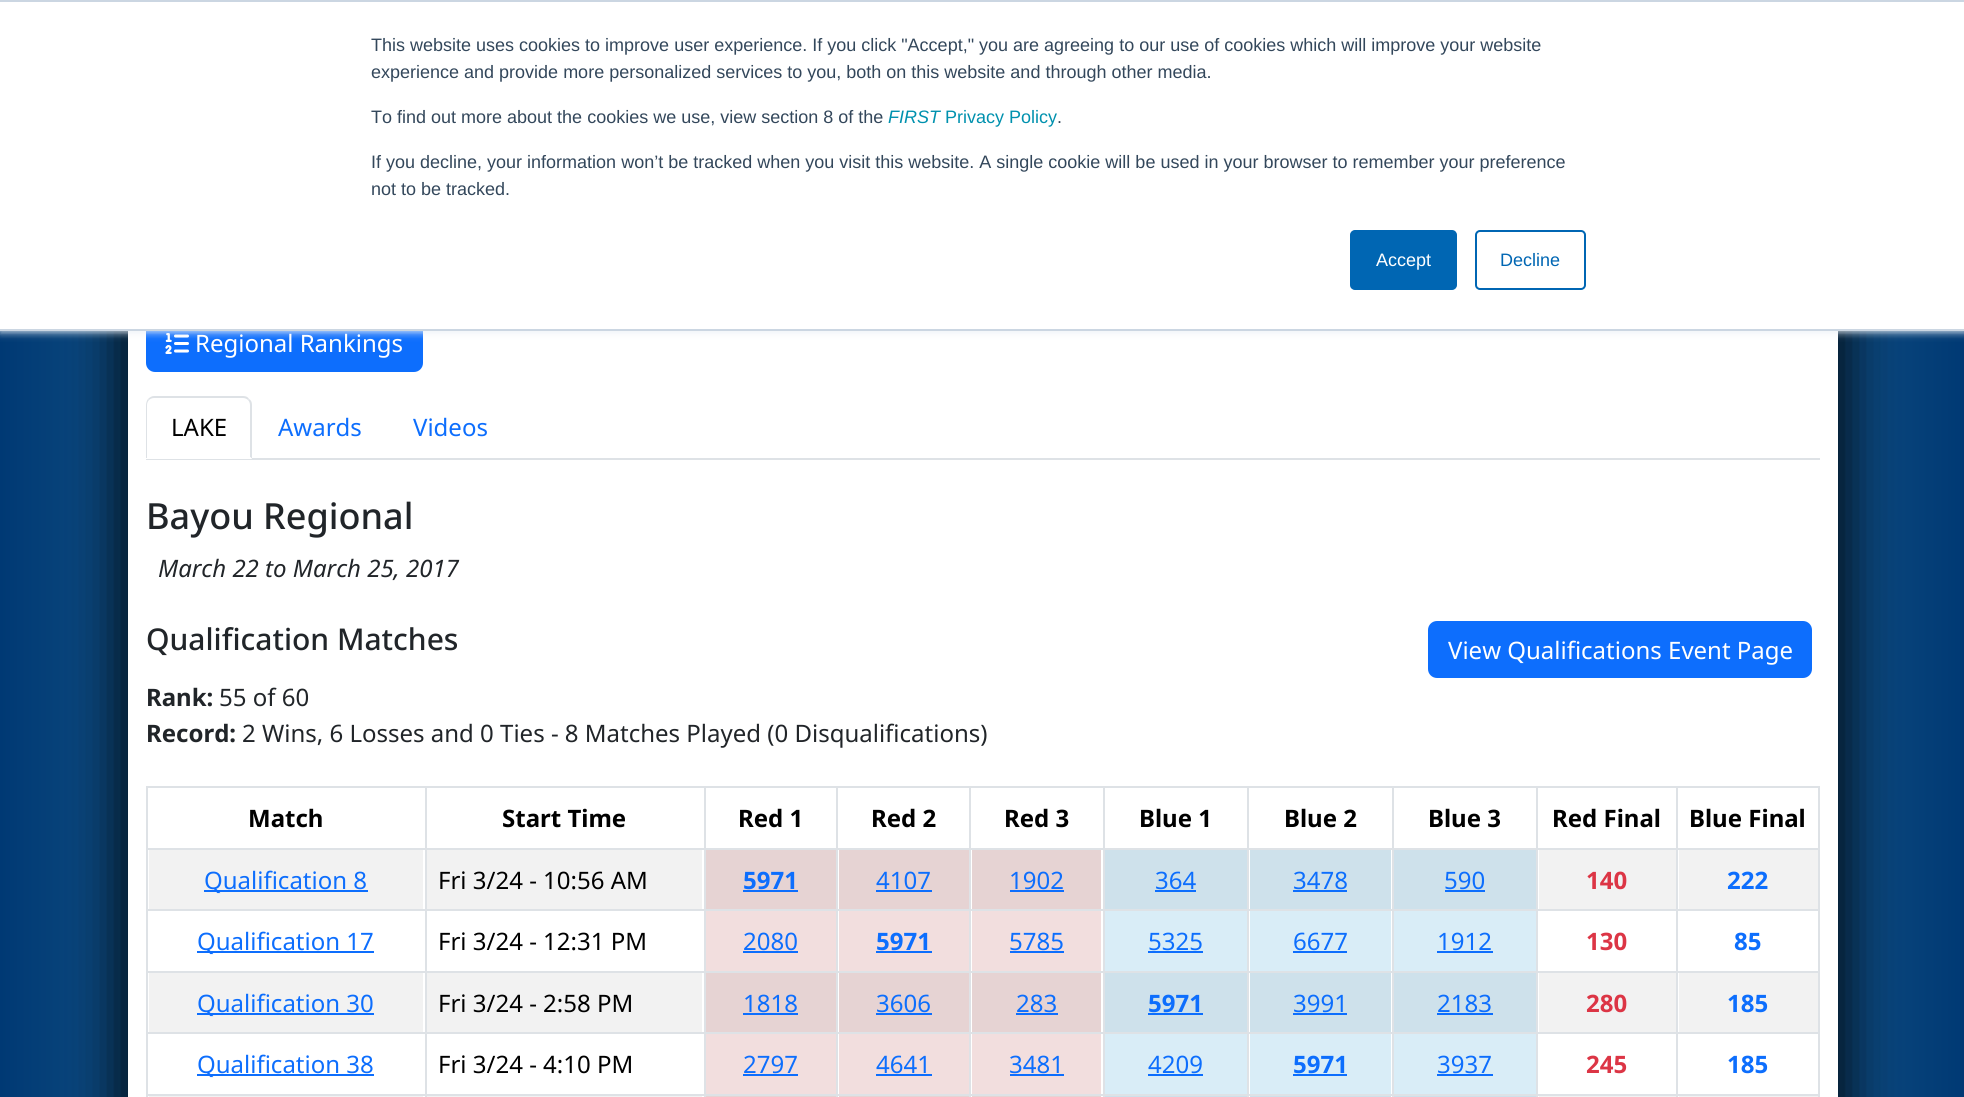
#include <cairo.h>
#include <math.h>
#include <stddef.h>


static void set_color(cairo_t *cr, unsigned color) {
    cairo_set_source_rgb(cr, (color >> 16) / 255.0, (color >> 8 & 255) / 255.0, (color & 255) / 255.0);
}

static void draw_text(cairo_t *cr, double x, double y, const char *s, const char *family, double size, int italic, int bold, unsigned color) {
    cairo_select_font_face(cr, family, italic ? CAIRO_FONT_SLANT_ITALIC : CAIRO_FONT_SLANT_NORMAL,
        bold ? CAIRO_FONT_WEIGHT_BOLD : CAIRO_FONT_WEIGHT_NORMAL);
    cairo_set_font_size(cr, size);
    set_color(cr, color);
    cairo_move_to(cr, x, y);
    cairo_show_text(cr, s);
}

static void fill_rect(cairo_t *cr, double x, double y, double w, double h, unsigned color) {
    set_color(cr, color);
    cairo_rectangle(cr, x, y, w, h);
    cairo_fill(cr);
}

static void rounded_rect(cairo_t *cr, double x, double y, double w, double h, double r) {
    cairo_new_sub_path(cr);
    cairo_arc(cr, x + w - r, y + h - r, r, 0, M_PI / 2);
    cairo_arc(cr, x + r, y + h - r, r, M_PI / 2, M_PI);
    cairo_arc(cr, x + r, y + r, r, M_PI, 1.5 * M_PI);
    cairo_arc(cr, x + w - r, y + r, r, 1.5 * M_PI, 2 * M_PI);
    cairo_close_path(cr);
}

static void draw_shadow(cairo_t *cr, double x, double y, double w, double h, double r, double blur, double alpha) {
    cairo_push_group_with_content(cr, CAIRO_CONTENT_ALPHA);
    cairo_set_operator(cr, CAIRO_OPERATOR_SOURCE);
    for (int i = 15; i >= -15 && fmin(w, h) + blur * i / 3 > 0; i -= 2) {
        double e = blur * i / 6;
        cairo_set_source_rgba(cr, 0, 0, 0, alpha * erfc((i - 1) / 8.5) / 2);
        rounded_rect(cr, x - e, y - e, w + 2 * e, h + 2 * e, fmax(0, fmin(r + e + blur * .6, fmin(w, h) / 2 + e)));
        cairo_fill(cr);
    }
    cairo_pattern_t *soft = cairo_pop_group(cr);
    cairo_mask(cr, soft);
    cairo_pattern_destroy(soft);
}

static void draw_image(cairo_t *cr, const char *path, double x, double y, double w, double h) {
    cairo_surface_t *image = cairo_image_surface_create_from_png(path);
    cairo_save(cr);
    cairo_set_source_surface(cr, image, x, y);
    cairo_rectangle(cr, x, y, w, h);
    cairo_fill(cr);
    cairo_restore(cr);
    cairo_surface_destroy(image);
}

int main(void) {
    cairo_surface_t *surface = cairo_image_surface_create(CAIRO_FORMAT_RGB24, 1964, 1097);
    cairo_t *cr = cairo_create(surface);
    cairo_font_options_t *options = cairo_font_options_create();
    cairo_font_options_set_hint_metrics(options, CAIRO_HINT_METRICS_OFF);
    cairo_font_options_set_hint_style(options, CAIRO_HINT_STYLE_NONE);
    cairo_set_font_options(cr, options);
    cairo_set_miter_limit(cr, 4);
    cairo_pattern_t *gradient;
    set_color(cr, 0xFFFFFF);
    cairo_paint(cr);
    gradient = cairo_pattern_create_linear(0, 848, 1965, 848);
    cairo_pattern_add_color_stop_rgba(gradient, 0, 0, 0.224, 0.455, 1);
    cairo_pattern_add_color_stop_rgba(gradient, 0.5, 0.424, 0.761, 0.788, 1);
    cairo_pattern_add_color_stop_rgba(gradient, 1, 0, 0.224, 0.455, 1);
    cairo_set_source(cr, gradient);
    cairo_pattern_destroy(gradient);
    cairo_rectangle(cr, 0, 331, 1964, 766);
    cairo_fill(cr);
    set_color(cr, 0x000000);
    draw_shadow(cr, 146, -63, 1710, 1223, 0, 21, 0.6);
    draw_shadow(cr, 110, -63, 1710, 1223, 0, 21, 0.6);
    fill_rect(cr, 128, 331, 1710, 766, 0xFFFFFF);
    set_color(cr, 0x0D6EFD);
    rounded_rect(cr, 147, 316, 275, 55, 8);
    cairo_fill_preserve(cr);
    cairo_stroke(cr);
    draw_image(cr, "assets/img1.png", 165, 333, 24, 21);
    set_color(cr, 0xEAF0F6);
    draw_shadow(cr, 0, 2, 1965, 330, 0, 4, 1);
    fill_rect(cr, 0, 2, 1964, 327, 0xFFFFFF);
    fill_rect(cr, 0, 0, 1964, 2, 0xCBD6E2);
    fill_rect(cr, 0, 329, 1964, 2, 0xCBD6E2);
    draw_text(cr, 371, 51, "This website uses cookies to improve user experience. If you click \"Accept,\" you are agreeing to our use of cookies which will improve your website", "Liberation Sans", 18, 0, 0, 0x33475B);
    draw_text(cr, 371, 78, "experience and provide more personalized services to you, both on this website and through other media.", "Liberation Sans", 18, 0, 0, 0x33475B);
    draw_text(cr, 371, 123, "To find out more about the cookies we use, view section 8 of the", "Liberation Sans", 18, 0, 0, 0x33475B);
    draw_text(cr, 888, 123, "FIRST", "Liberation Sans", 18, 1, 0, 0x0091AE);
    draw_text(cr, 945, 123, "Privacy Policy", "Liberation Sans", 18, 0, 0, 0x0091AE);
    draw_text(cr, 1057, 123, ".", "Liberation Sans", 18, 0, 0, 0x33475B);
    draw_text(cr, 371, 168, "If you decline, your information won’t be tracked when you visit this website. A single cookie will be used in your browser to remember your preference", "Liberation Sans", 18, 0, 0, 0x33475B);
    draw_text(cr, 371, 195, "not to be tracked.", "Liberation Sans", 18, 0, 0, 0x33475B);
    set_color(cr, 0x0066B3);
    rounded_rect(cr, 1351, 231, 105, 58, 4);
    cairo_fill_preserve(cr);
    cairo_stroke(cr);
    draw_text(cr, 1376, 266, "Accept", "Liberation Sans", 18, 0, 0, 0xFFFFFF);
    rounded_rect(cr, 1476, 231, 109, 58, 4);
    set_color(cr, 0x0066B3);
    cairo_stroke(cr);
    draw_text(cr, 1500, 266, "Decline", "Liberation Sans", 18, 0, 0, 0x0066B3);
    draw_text(cr, 195, 352, "Regional Rankings", "Noto Sans", 24, 0, 0, 0xFFFFFF);
    fill_rect(cr, 146, 458, 1674, 2, 0xDEE2E6);
    set_color(cr, 0xFFFFFF);
    cairo_new_path(cr);
    cairo_move_to(cr, 155, 396);
    cairo_line_to(cr, 243, 396);
    cairo_curve_to(cr, 248, 396, 252, 400, 252, 405);
    cairo_line_to(cr, 252, 459);
    cairo_line_to(cr, 146, 459);
    cairo_line_to(cr, 146, 405);
    cairo_curve_to(cr, 146, 400, 150, 396, 155, 396);
    cairo_close_path(cr);
    cairo_fill(cr);
    set_color(cr, 0xDEE2E6);
    cairo_new_path(cr);
    cairo_move_to(cr, 154, 396);
    cairo_curve_to(cr, 152, 396, 150, 397, 148, 399);
    cairo_line_to(cr, 149, 400);
    cairo_curve_to(cr, 150, 399, 152, 398, 154, 398);
    cairo_line_to(cr, 243, 398);
    cairo_curve_to(cr, 245, 398, 247, 399, 248, 400);
    cairo_line_to(cr, 249, 399);
    cairo_curve_to(cr, 248, 397, 246, 396, 243, 396);
    cairo_close_path(cr);
    cairo_fill(cr);
    cairo_new_path(cr);
    cairo_move_to(cr, 252, 459);
    cairo_line_to(cr, 252, 405);
    cairo_curve_to(cr, 252, 402, 251, 400, 249, 399);
    cairo_line_to(cr, 248, 400);
    cairo_curve_to(cr, 249, 401, 250, 403, 250, 405);
    cairo_line_to(cr, 250, 457);
    cairo_close_path(cr);
    cairo_fill(cr);
    set_color(cr, 0xFFFFFF);
    cairo_new_path(cr);
    cairo_move_to(cr, 252, 459);
    cairo_line_to(cr, 250, 457);
    cairo_line_to(cr, 250, 458);
    cairo_line_to(cr, 147, 458);
    cairo_line_to(cr, 146, 459);
    cairo_close_path(cr);
    cairo_fill(cr);
    set_color(cr, 0xDEE2E6);
    cairo_new_path(cr);
    cairo_move_to(cr, 148, 399);
    cairo_curve_to(cr, 147, 400, 146, 403, 146, 405);
    cairo_line_to(cr, 146, 458);
    cairo_line_to(cr, 147, 458);
    cairo_line_to(cr, 147, 405);
    cairo_curve_to(cr, 147, 403, 148, 401, 149, 400);
    cairo_close_path(cr);
    cairo_fill(cr);
    draw_text(cr, 171, 436, "LAKE", "Noto Sans", 24, 0, 0, 0x000000);
    draw_text(cr, 278, 436, "Awards", "Noto Sans", 24, 0, 0, 0x0D6EFD);
    draw_text(cr, 413, 436, "Videos", "Noto Sans", 24, 0, 0, 0x0D6EFD);
    draw_text(cr, 146, 529, "Bayou Regional", "Noto Sans Medium", 36, 0, 0, 0x212529);
    draw_text(cr, 158, 577, "March 22 to March 25, 2017", "Noto Sans", 24, 1, 0, 0x212529);
    draw_text(cr, 146, 650, "Qualification Matches", "Noto Sans Medium", 30, 0, 0, 0x212529);
    set_color(cr, 0x0D6EFD);
    rounded_rect(cr, 1429, 622, 382, 55, 8);
    cairo_fill_preserve(cr);
    cairo_stroke(cr);
    draw_text(cr, 1448, 659, "View Qualifications Event Page", "Noto Sans", 24, 0, 0, 0xFFFFFF);
    draw_text(cr, 146, 706, "Rank:", "Noto Sans", 24, 0, 1, 0x212529);
    draw_text(cr, 219, 706, "55 of 60", "Noto Sans", 24, 0, 0, 0x212529);
    draw_text(cr, 146, 742, "Record:", "Noto Sans", 24, 0, 1, 0x212529);
    draw_text(cr, 242, 742, "2 Wins, 6 Losses and 0 Ties - 8 Matches Played (0 Disqualifications)", "Noto Sans", 24, 0, 0, 0x212529);
    fill_rect(cr, 146, 786, 1674, 2, 0xDEE2E6);
    draw_text(cr, 248, 827, "Match", "Noto Sans", 24, 0, 1, 0x000000);
    draw_text(cr, 502, 827, "Start Time", "Noto Sans", 24, 0, 1, 0x000000);
    draw_text(cr, 738, 827, "Red 1", "Noto Sans", 24, 0, 1, 0x000000);
    draw_text(cr, 871, 827, "Red 2", "Noto Sans", 24, 0, 1, 0x000000);
    draw_text(cr, 1004, 827, "Red 3", "Noto Sans", 24, 0, 1, 0x000000);
    draw_text(cr, 1139, 827, "Blue 1", "Noto Sans", 24, 0, 1, 0x000000);
    draw_text(cr, 1284, 827, "Blue 2", "Noto Sans", 24, 0, 1, 0x000000);
    draw_text(cr, 1428, 827, "Blue 3", "Noto Sans", 24, 0, 1, 0x000000);
    draw_text(cr, 1552, 827, "Red Final", "Noto Sans", 24, 0, 1, 0x000000);
    draw_text(cr, 1689, 827, "Blue Final", "Noto Sans", 24, 0, 1, 0x000000);
    fill_rect(cr, 146, 1094, 1674, 2, 0xDEE2E6);
    fill_rect(cr, 149, 1096, 274, 1, 0xF2F2F2);
    fill_rect(cr, 146, 848, 1674, 2, 0xDEE2E6);
    fill_rect(cr, 146, 909, 1674, 2, 0xDEE2E6);
    fill_rect(cr, 146, 971, 1674, 2, 0xDEE2E6);
    fill_rect(cr, 146, 1032, 1674, 2, 0xDEE2E6);
    fill_rect(cr, 146, 786, 2, 311, 0xDEE2E6);
    fill_rect(cr, 426, 1096, 276, 1, 0xF2F2F2);
    fill_rect(cr, 425, 786, 2, 311, 0xDEE2E6);
    fill_rect(cr, 705, 1096, 131, 1, 0xE6D3D3);
    fill_rect(cr, 704, 786, 2, 311, 0xDEE2E6);
    fill_rect(cr, 839, 1096, 130, 1, 0xE6D3D3);
    fill_rect(cr, 836, 786, 2, 311, 0xDEE2E6);
    fill_rect(cr, 972, 1096, 129, 1, 0xE6D3D3);
    fill_rect(cr, 969, 786, 2, 311, 0xDEE2E6);
    fill_rect(cr, 1104, 1096, 143, 1, 0xCEE1EB);
    fill_rect(cr, 1103, 786, 2, 311, 0xDEE2E6);
    fill_rect(cr, 1250, 1096, 141, 1, 0xCEE1EB);
    fill_rect(cr, 1247, 786, 2, 311, 0xDEE2E6);
    fill_rect(cr, 1394, 1096, 142, 1, 0xCEE1EB);
    fill_rect(cr, 1392, 786, 2, 311, 0xDEE2E6);
    fill_rect(cr, 1539, 1096, 137, 1, 0xF2F2F2);
    fill_rect(cr, 1536, 786, 2, 311, 0xDEE2E6);
    fill_rect(cr, 1679, 1096, 139, 1, 0xF2F2F2);
    fill_rect(cr, 1818, 786, 2, 311, 0xDEE2E6);
    fill_rect(cr, 1676, 786, 2, 311, 0xDEE2E6);
    fill_rect(cr, 149, 850, 274, 59, 0xF2F2F2);
    fill_rect(cr, 204, 890, 164, 2, 0x0D6EFD);
    draw_text(cr, 204, 889, "Qualification 8", "Noto Sans", 24, 0, 0, 0x0D6EFD);
    fill_rect(cr, 427, 850, 275, 59, 0xF2F2F2);
    draw_text(cr, 438, 889, "Fri 3/24 - 10:56 AM", "Noto Sans", 24, 0, 0, 0x000000);
    fill_rect(cr, 706, 850, 130, 59, 0xE6D3D3);
    draw_text(cr, 743, 889, "5971", "Noto Sans", 24, 0, 1, 0x0D6EFD);
    fill_rect(cr, 743, 890, 55, 2, 0x0D6EFD);
    fill_rect(cr, 839, 850, 130, 59, 0xE6D3D3);
    draw_text(cr, 876, 889, "4107", "Noto Sans", 24, 0, 0, 0x0D6EFD);
    fill_rect(cr, 876, 890, 56, 2, 0x0D6EFD);
    fill_rect(cr, 972, 850, 129, 59, 0xE6D3D3);
    draw_text(cr, 1009, 889, "1902", "Noto Sans", 24, 0, 0, 0x0D6EFD);
    fill_rect(cr, 1010, 890, 54, 2, 0x0D6EFD);
    fill_rect(cr, 1105, 850, 142, 59, 0xCEE1EB);
    draw_text(cr, 1155, 889, "364", "Noto Sans", 24, 0, 0, 0x0D6EFD);
    fill_rect(cr, 1155, 890, 41, 2, 0x0D6EFD);
    fill_rect(cr, 1250, 850, 141, 59, 0xCEE1EB);
    draw_text(cr, 1293, 889, "3478", "Noto Sans", 24, 0, 0, 0x0D6EFD);
    fill_rect(cr, 1293, 890, 54, 2, 0x0D6EFD);
    fill_rect(cr, 1394, 850, 142, 59, 0xCEE1EB);
    draw_text(cr, 1444, 889, "590", "Noto Sans", 24, 0, 0, 0x0D6EFD);
    fill_rect(cr, 1445, 890, 40, 2, 0x0D6EFD);
    fill_rect(cr, 1539, 850, 137, 59, 0xF2F2F2);
    draw_text(cr, 1586, 889, "140", "Noto Sans", 24, 0, 1, 0xDC3545);
    fill_rect(cr, 1679, 850, 139, 59, 0xF2F2F2);
    draw_text(cr, 1727, 889, "222", "Noto Sans", 24, 0, 1, 0x0D6EFD);
    fill_rect(cr, 197, 951, 177, 2, 0x0D6EFD);
    draw_text(cr, 197, 950, "Qualification 17", "Noto Sans", 24, 0, 0, 0x0D6EFD);
    draw_text(cr, 438, 950, "Fri 3/24 - 12:31 PM", "Noto Sans", 24, 0, 0, 0x000000);
    fill_rect(cr, 706, 911, 130, 60, 0xF2DEDE);
    draw_text(cr, 743, 950, "2080", "Noto Sans", 24, 0, 0, 0x0D6EFD);
    fill_rect(cr, 743, 951, 55, 2, 0x0D6EFD);
    fill_rect(cr, 839, 911, 130, 60, 0xF2DEDE);
    draw_text(cr, 876, 950, "5971", "Noto Sans", 24, 0, 1, 0x0D6EFD);
    fill_rect(cr, 876, 951, 56, 2, 0x0D6EFD);
    fill_rect(cr, 972, 911, 129, 60, 0xF2DEDE);
    draw_text(cr, 1009, 950, "5785", "Noto Sans", 24, 0, 0, 0x0D6EFD);
    fill_rect(cr, 1010, 951, 54, 2, 0x0D6EFD);
    fill_rect(cr, 1105, 911, 142, 60, 0xD9EDF7);
    draw_text(cr, 1148, 950, "5325", "Noto Sans", 24, 0, 0, 0x0D6EFD);
    fill_rect(cr, 1148, 951, 55, 2, 0x0D6EFD);
    fill_rect(cr, 1250, 911, 141, 60, 0xD9EDF7);
    draw_text(cr, 1293, 950, "6677", "Noto Sans", 24, 0, 0, 0x0D6EFD);
    fill_rect(cr, 1293, 951, 54, 2, 0x0D6EFD);
    fill_rect(cr, 1394, 911, 142, 60, 0xD9EDF7);
    draw_text(cr, 1437, 950, "1912", "Noto Sans", 24, 0, 0, 0x0D6EFD);
    fill_rect(cr, 1437, 951, 56, 2, 0x0D6EFD);
    draw_text(cr, 1586, 950, "130", "Noto Sans", 24, 0, 1, 0xDC3545);
    draw_text(cr, 1734, 950, "85", "Noto Sans", 24, 0, 1, 0x0D6EFD);
    fill_rect(cr, 149, 973, 274, 59, 0xF2F2F2);
    fill_rect(cr, 197, 1013, 177, 2, 0x0D6EFD);
    draw_text(cr, 197, 1012, "Qualification 30", "Noto Sans", 24, 0, 0, 0x0D6EFD);
    fill_rect(cr, 427, 973, 275, 59, 0xF2F2F2);
    draw_text(cr, 438, 1012, "Fri 3/24 - 2:58 PM", "Noto Sans", 24, 0, 0, 0x000000);
    fill_rect(cr, 706, 973, 130, 59, 0xE6D3D3);
    draw_text(cr, 743, 1012, "1818", "Noto Sans", 24, 0, 0, 0x0D6EFD);
    fill_rect(cr, 743, 1013, 55, 2, 0x0D6EFD);
    fill_rect(cr, 839, 973, 130, 59, 0xE6D3D3);
    draw_text(cr, 876, 1012, "3606", "Noto Sans", 24, 0, 0, 0x0D6EFD);
    fill_rect(cr, 876, 1013, 56, 2, 0x0D6EFD);
    fill_rect(cr, 972, 973, 129, 59, 0xE6D3D3);
    draw_text(cr, 1016, 1012, "283", "Noto Sans", 24, 0, 0, 0x0D6EFD);
    fill_rect(cr, 1016, 1013, 42, 2, 0x0D6EFD);
    fill_rect(cr, 1105, 973, 142, 59, 0xCEE1EB);
    draw_text(cr, 1148, 1012, "5971", "Noto Sans", 24, 0, 1, 0x0D6EFD);
    fill_rect(cr, 1148, 1013, 55, 2, 0x0D6EFD);
    fill_rect(cr, 1250, 973, 141, 59, 0xCEE1EB);
    draw_text(cr, 1293, 1012, "3991", "Noto Sans", 24, 0, 0, 0x0D6EFD);
    fill_rect(cr, 1293, 1013, 54, 2, 0x0D6EFD);
    fill_rect(cr, 1394, 973, 142, 59, 0xCEE1EB);
    draw_text(cr, 1437, 1012, "2183", "Noto Sans", 24, 0, 0, 0x0D6EFD);
    fill_rect(cr, 1437, 1013, 56, 2, 0x0D6EFD);
    fill_rect(cr, 1539, 973, 137, 59, 0xF2F2F2);
    draw_text(cr, 1586, 1012, "280", "Noto Sans", 24, 0, 1, 0xDC3545);
    fill_rect(cr, 1679, 973, 139, 59, 0xF2F2F2);
    draw_text(cr, 1727, 1012, "185", "Noto Sans", 24, 0, 1, 0x0D6EFD);
    fill_rect(cr, 197, 1074, 177, 2, 0x0D6EFD);
    draw_text(cr, 197, 1073, "Qualification 38", "Noto Sans", 24, 0, 0, 0x0D6EFD);
    draw_text(cr, 438, 1073, "Fri 3/24 - 4:10 PM", "Noto Sans", 24, 0, 0, 0x000000);
    fill_rect(cr, 706, 1034, 130, 60, 0xF2DEDE);
    draw_text(cr, 743, 1073, "2797", "Noto Sans", 24, 0, 0, 0x0D6EFD);
    fill_rect(cr, 743, 1074, 55, 2, 0x0D6EFD);
    fill_rect(cr, 839, 1034, 130, 60, 0xF2DEDE);
    draw_text(cr, 876, 1073, "4641", "Noto Sans", 24, 0, 0, 0x0D6EFD);
    fill_rect(cr, 876, 1074, 56, 2, 0x0D6EFD);
    fill_rect(cr, 972, 1034, 129, 60, 0xF2DEDE);
    draw_text(cr, 1009, 1073, "3481", "Noto Sans", 24, 0, 0, 0x0D6EFD);
    fill_rect(cr, 1010, 1074, 54, 2, 0x0D6EFD);
    fill_rect(cr, 1105, 1034, 142, 60, 0xD9EDF7);
    draw_text(cr, 1148, 1073, "4209", "Noto Sans", 24, 0, 0, 0x0D6EFD);
    fill_rect(cr, 1148, 1074, 55, 2, 0x0D6EFD);
    fill_rect(cr, 1250, 1034, 141, 60, 0xD9EDF7);
    draw_text(cr, 1293, 1073, "5971", "Noto Sans", 24, 0, 1, 0x0D6EFD);
    fill_rect(cr, 1293, 1074, 54, 2, 0x0D6EFD);
    fill_rect(cr, 1394, 1034, 142, 60, 0xD9EDF7);
    draw_text(cr, 1437, 1073, "3937", "Noto Sans", 24, 0, 0, 0x0D6EFD);
    fill_rect(cr, 1437, 1074, 56, 2, 0x0D6EFD);
    draw_text(cr, 1586, 1073, "245", "Noto Sans", 24, 0, 1, 0xDC3545);
    draw_text(cr, 1727, 1073, "185", "Noto Sans", 24, 0, 1, 0x0D6EFD);
    cairo_surface_write_to_png(surface, "output.png");
    cairo_font_options_destroy(options);
    cairo_destroy(cr);
    cairo_surface_destroy(surface);
    return 0;
}
